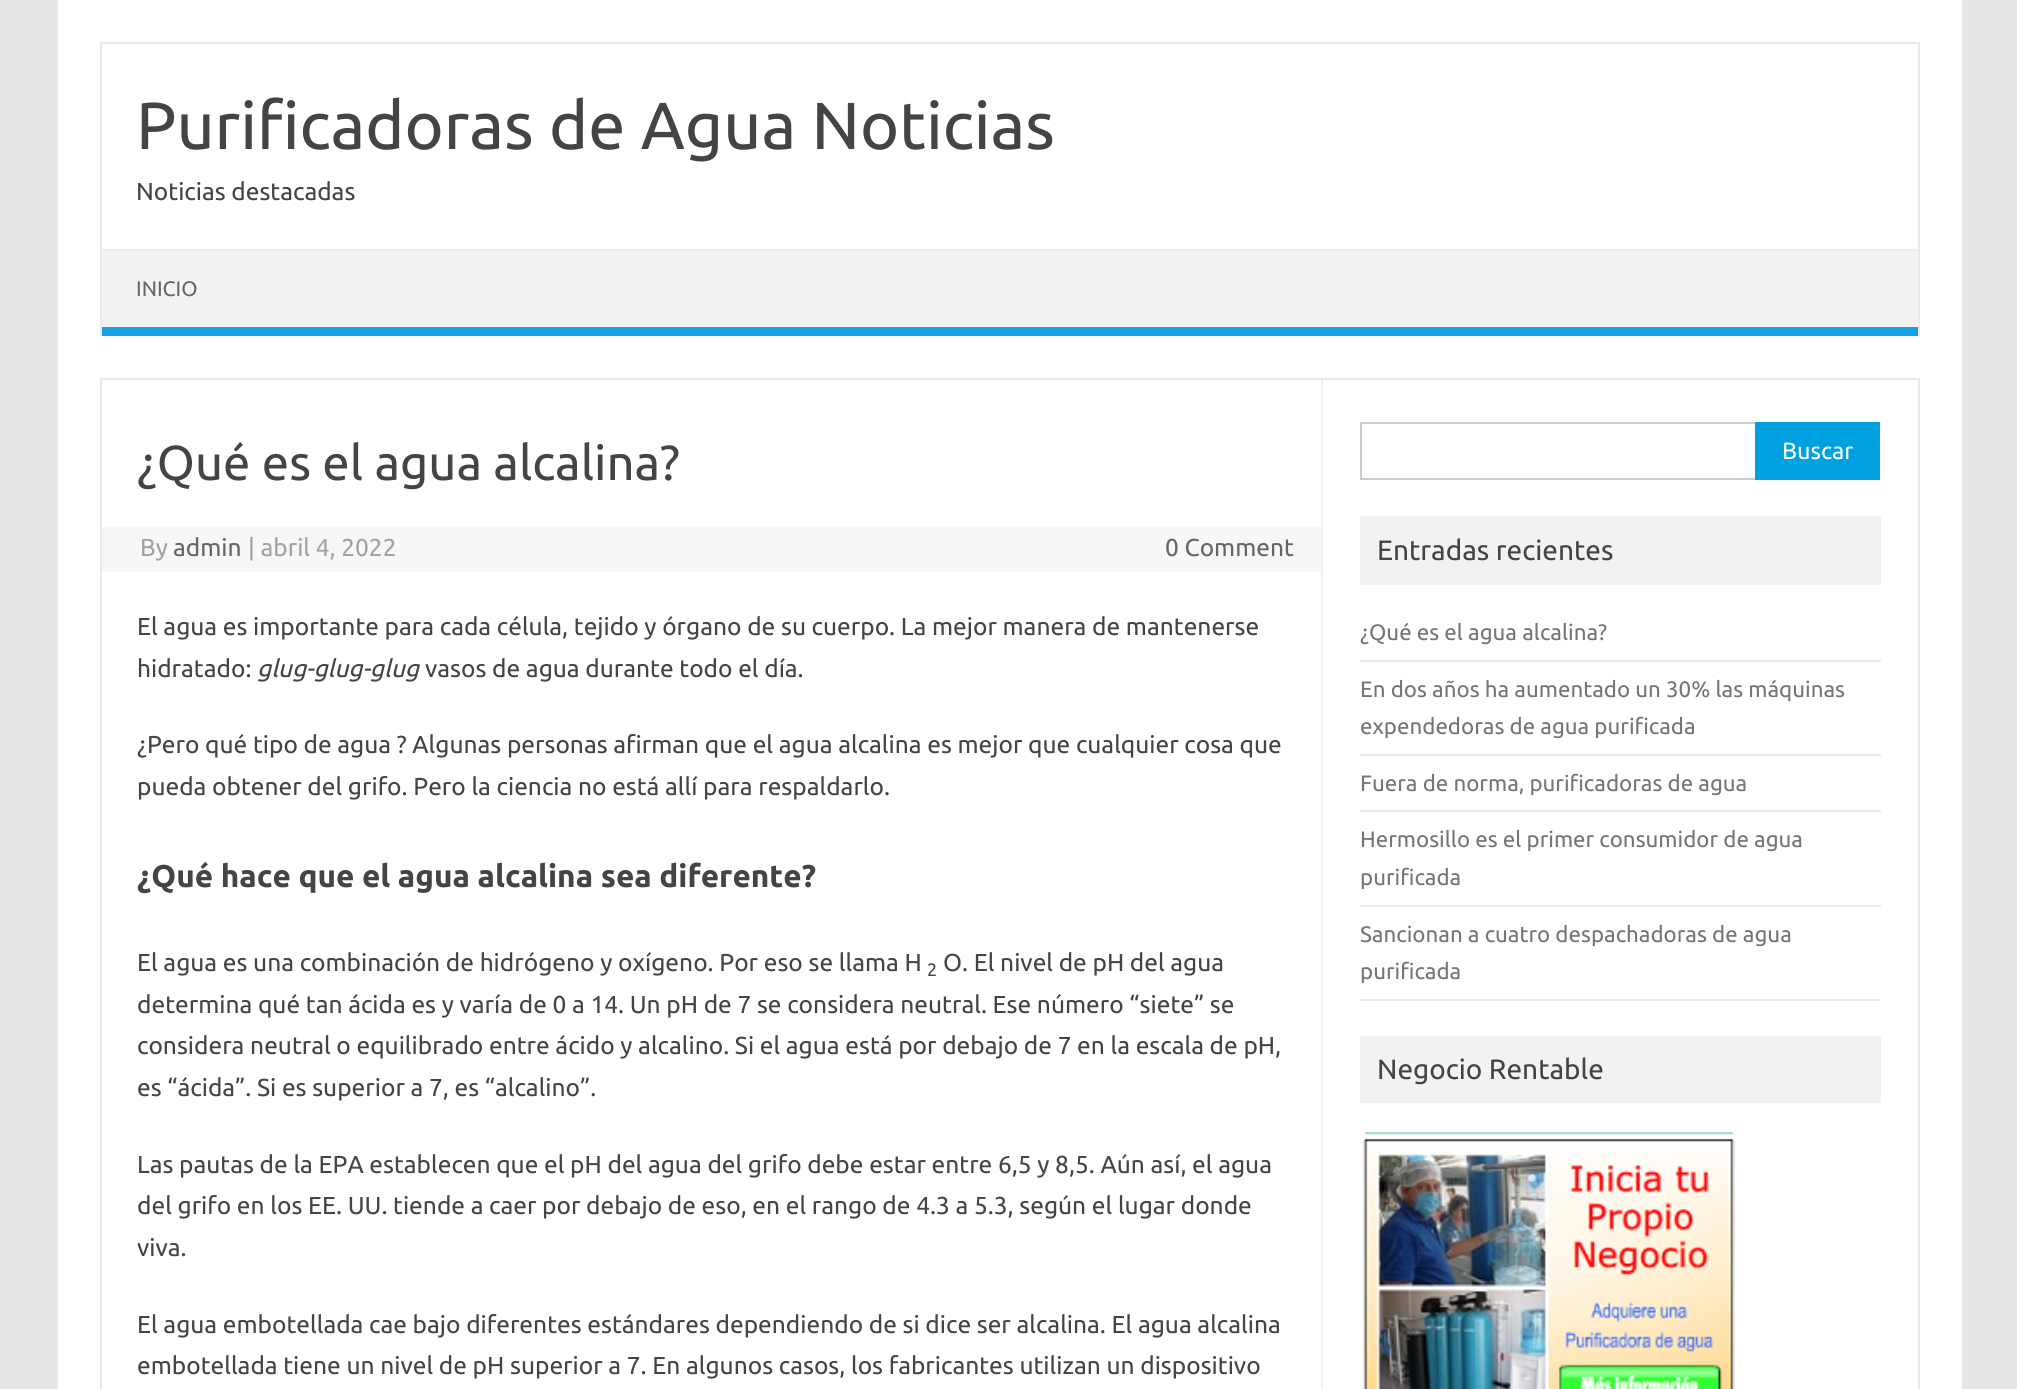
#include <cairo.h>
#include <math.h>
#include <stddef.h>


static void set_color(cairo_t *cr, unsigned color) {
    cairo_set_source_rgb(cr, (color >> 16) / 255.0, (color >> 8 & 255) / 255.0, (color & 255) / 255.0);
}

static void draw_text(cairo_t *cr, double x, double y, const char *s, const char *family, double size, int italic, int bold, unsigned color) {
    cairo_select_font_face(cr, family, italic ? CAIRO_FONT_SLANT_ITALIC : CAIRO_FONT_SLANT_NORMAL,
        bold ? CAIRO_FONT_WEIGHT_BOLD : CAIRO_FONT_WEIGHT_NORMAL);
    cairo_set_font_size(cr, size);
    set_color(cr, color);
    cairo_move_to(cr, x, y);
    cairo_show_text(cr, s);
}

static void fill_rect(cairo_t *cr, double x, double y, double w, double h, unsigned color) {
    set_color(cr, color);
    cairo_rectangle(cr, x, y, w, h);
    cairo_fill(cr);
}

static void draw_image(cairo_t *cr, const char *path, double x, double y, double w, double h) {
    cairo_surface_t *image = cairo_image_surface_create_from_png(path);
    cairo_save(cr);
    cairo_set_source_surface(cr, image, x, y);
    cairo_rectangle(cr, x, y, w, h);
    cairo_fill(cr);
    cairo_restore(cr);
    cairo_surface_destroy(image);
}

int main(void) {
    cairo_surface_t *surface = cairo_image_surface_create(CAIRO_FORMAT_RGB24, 2017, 1389);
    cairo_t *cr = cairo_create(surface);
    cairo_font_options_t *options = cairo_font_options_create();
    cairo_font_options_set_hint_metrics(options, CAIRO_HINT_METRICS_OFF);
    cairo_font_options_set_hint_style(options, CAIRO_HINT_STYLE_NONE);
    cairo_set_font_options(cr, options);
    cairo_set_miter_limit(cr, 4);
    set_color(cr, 0xE6E6E6);
    cairo_paint(cr);
    fill_rect(cr, 58, 0, 1904, 1389, 0xFFFFFF);
    fill_rect(cr, 100, 42, 1820, 2, 0xE9E9E9);
    fill_rect(cr, 1918, 42, 2, 294, 0xE9E9E9);
    fill_rect(cr, 100, 42, 2, 294, 0xE9E9E9);
    draw_text(cr, 136, 149, "Purificadoras de Agua Noticias", "Ubuntu", 66.5, 0, 0, 0x444444);
    draw_text(cr, 136, 200, "Noticias destacadas", "Ubuntu", 24.5, 0, 0, 0x444444);
    fill_rect(cr, 102, 251, 1816, 76, 0xF3F3F3);
    fill_rect(cr, 102, 249, 1816, 2, 0xEDEDED);
    fill_rect(cr, 102, 327, 1816, 9, 0x16A1E7);
    draw_text(cr, 136, 296, "INICIO", "Ubuntu", 21, 0, 0, 0x666666);
    cairo_rectangle(cr, 101, 379, 1818, 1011);
    set_color(cr, 0xE9E9E9);
    cairo_stroke(cr);
    fill_rect(cr, 1321, 380, 2, 1009, 0xF1F1F1);
    draw_text(cr, 137, 480, "¿Qué es el agua alcalina?", "Ubuntu", 49, 0, 0, 0x444444);
    fill_rect(cr, 102, 527, 1219, 45, 0xF7F7F7);
    draw_text(cr, 140, 556, "By", "Ubuntu", 24.5, 0, 0, 0xA2A2A2);
    draw_text(cr, 173, 556, "admin", "Ubuntu", 24.5, 0, 0, 0x666666);
    draw_text(cr, 248, 556, "| abril 4, 2022", "Ubuntu", 24.5, 0, 0, 0xA2A2A2);
    draw_text(cr, 1165, 556, "0 Comment", "Ubuntu", 24.5, 0, 0, 0x666666);
    draw_text(cr, 137, 635, "El agua es importante para cada célula, tejido y órgano de su cuerpo. La mejor manera de mantenerse", "Ubuntu", 24.5, 0, 0, 0x444444);
    draw_text(cr, 137, 677, "hidratado:", "Ubuntu", 24.5, 0, 0, 0x444444);
    draw_text(cr, 257, 677, "glug-glug-glug", "Ubuntu", 24.5, 1, 0, 0x444444);
    draw_text(cr, 425, 677, "vasos de agua durante todo el día.", "Ubuntu", 24.5, 0, 0, 0x444444);
    draw_text(cr, 137, 753, "¿Pero qué tipo de agua ? Algunas personas afirman que el agua alcalina es mejor que cualquier cosa que", "Ubuntu", 24.5, 0, 0, 0x444444);
    draw_text(cr, 137, 795, "pueda obtener del grifo. Pero la ciencia no está allí para respaldarlo.", "Ubuntu", 24.5, 0, 0, 0x444444);
    draw_text(cr, 137, 887, "¿Qué hace que el agua alcalina sea diferente?", "Ubuntu", 31.5, 0, 1, 0x444444);
    draw_text(cr, 137, 971, "El agua es una combinación de hidrógeno y oxígeno. Por eso se llama H", "Ubuntu", 24.5, 0, 0, 0x444444);
    draw_text(cr, 927, 976, "2", "Ubuntu", 18, 0, 0, 0x444444);
    draw_text(cr, 943, 971, "O. El nivel de pH del agua", "Ubuntu", 24.5, 0, 0, 0x444444);
    draw_text(cr, 137, 1013, "determina qué tan ácida es y varía de 0 a 14. Un pH de 7 se considera neutral. Ese número “siete” se", "Ubuntu", 24.5, 0, 0, 0x444444);
    draw_text(cr, 137, 1054, "considera neutral o equilibrado entre ácido y alcalino. Si el agua está por debajo de 7 en la escala de pH,", "Ubuntu", 24.5, 0, 0, 0x444444);
    draw_text(cr, 137, 1096, "es “ácida”. Si es superior a 7, es “alcalino”.", "Ubuntu", 24.5, 0, 0, 0x444444);
    draw_text(cr, 137, 1173, "Las pautas de la EPA establecen que el pH del agua del grifo debe estar entre 6,5 y 8,5. Aún así, el agua", "Ubuntu", 24.5, 0, 0, 0x444444);
    draw_text(cr, 137, 1214, "del grifo en los EE. UU. tiende a caer por debajo de eso, en el rango de 4.3 a 5.3, según el lugar donde", "Ubuntu", 24.5, 0, 0, 0x444444);
    draw_text(cr, 137, 1256, "viva.", "Ubuntu", 24.5, 0, 0, 0x444444);
    draw_text(cr, 137, 1333, "El agua embotellada cae bajo diferentes estándares dependiendo de si dice ser alcalina. El agua alcalina", "Ubuntu", 24.5, 0, 0, 0x444444);
    draw_text(cr, 137, 1374, "embotellada tiene un nivel de pH superior a 7. En algunos casos, los fabricantes utilizan un dispositivo", "Ubuntu", 24.5, 0, 0, 0x444444);
    cairo_rectangle(cr, 1361, 423, 395, 56);
    set_color(cr, 0xCCCCCC);
    cairo_stroke(cr);
    fill_rect(cr, 1755, 422, 125, 58, 0x00A1E0);
    draw_text(cr, 1782, 459, "Buscar", "Ubuntu", 23.5, 0, 0, 0xFFFFFF);
    fill_rect(cr, 1360, 516, 521, 69, 0xF2F2F2);
    draw_text(cr, 1377, 560, "Entradas recientes", "Ubuntu", 28, 0, 0, 0x444444);
    fill_rect(cr, 1360, 660, 521, 2, 0xE9E9E9);
    draw_text(cr, 1360, 640, "¿Qué es el agua alcalina?", "Ubuntu", 22.3, 0, 0, 0x757575);
    fill_rect(cr, 1360, 754, 521, 2, 0xE9E9E9);
    draw_text(cr, 1360, 697, "En dos años ha aumentado un 30% las máquinas", "Ubuntu", 22.3, 0, 0, 0x757575);
    draw_text(cr, 1360, 734, "expendedoras de agua purificada", "Ubuntu", 22.3, 0, 0, 0x757575);
    fill_rect(cr, 1360, 810, 521, 2, 0xE9E9E9);
    draw_text(cr, 1360, 791, "Fuera de norma, purificadoras de agua", "Ubuntu", 22.3, 0, 0, 0x757575);
    fill_rect(cr, 1360, 905, 521, 2, 0xE9E9E9);
    draw_text(cr, 1360, 847, "Hermosillo es el primer consumidor de agua", "Ubuntu", 22.3, 0, 0, 0x757575);
    draw_text(cr, 1360, 885, "purificada", "Ubuntu", 22.3, 0, 0, 0x757575);
    fill_rect(cr, 1360, 999, 521, 2, 0xE9E9E9);
    draw_text(cr, 1360, 942, "Sancionan a cuatro despachadoras de agua", "Ubuntu", 22.3, 0, 0, 0x757575);
    draw_text(cr, 1360, 979, "purificada", "Ubuntu", 22.3, 0, 0, 0x757575);
    fill_rect(cr, 1360, 1036, 521, 67, 0xF2F2F2);
    draw_text(cr, 1377, 1079, "Negocio Rentable", "Ubuntu", 28, 0, 0, 0x444444);
    draw_image(cr, "assets/img1.png", 1363, 1132, 372, 257);
    cairo_surface_write_to_png(surface, "output.png");
    cairo_font_options_destroy(options);
    cairo_destroy(cr);
    cairo_surface_destroy(surface);
    return 0;
}
